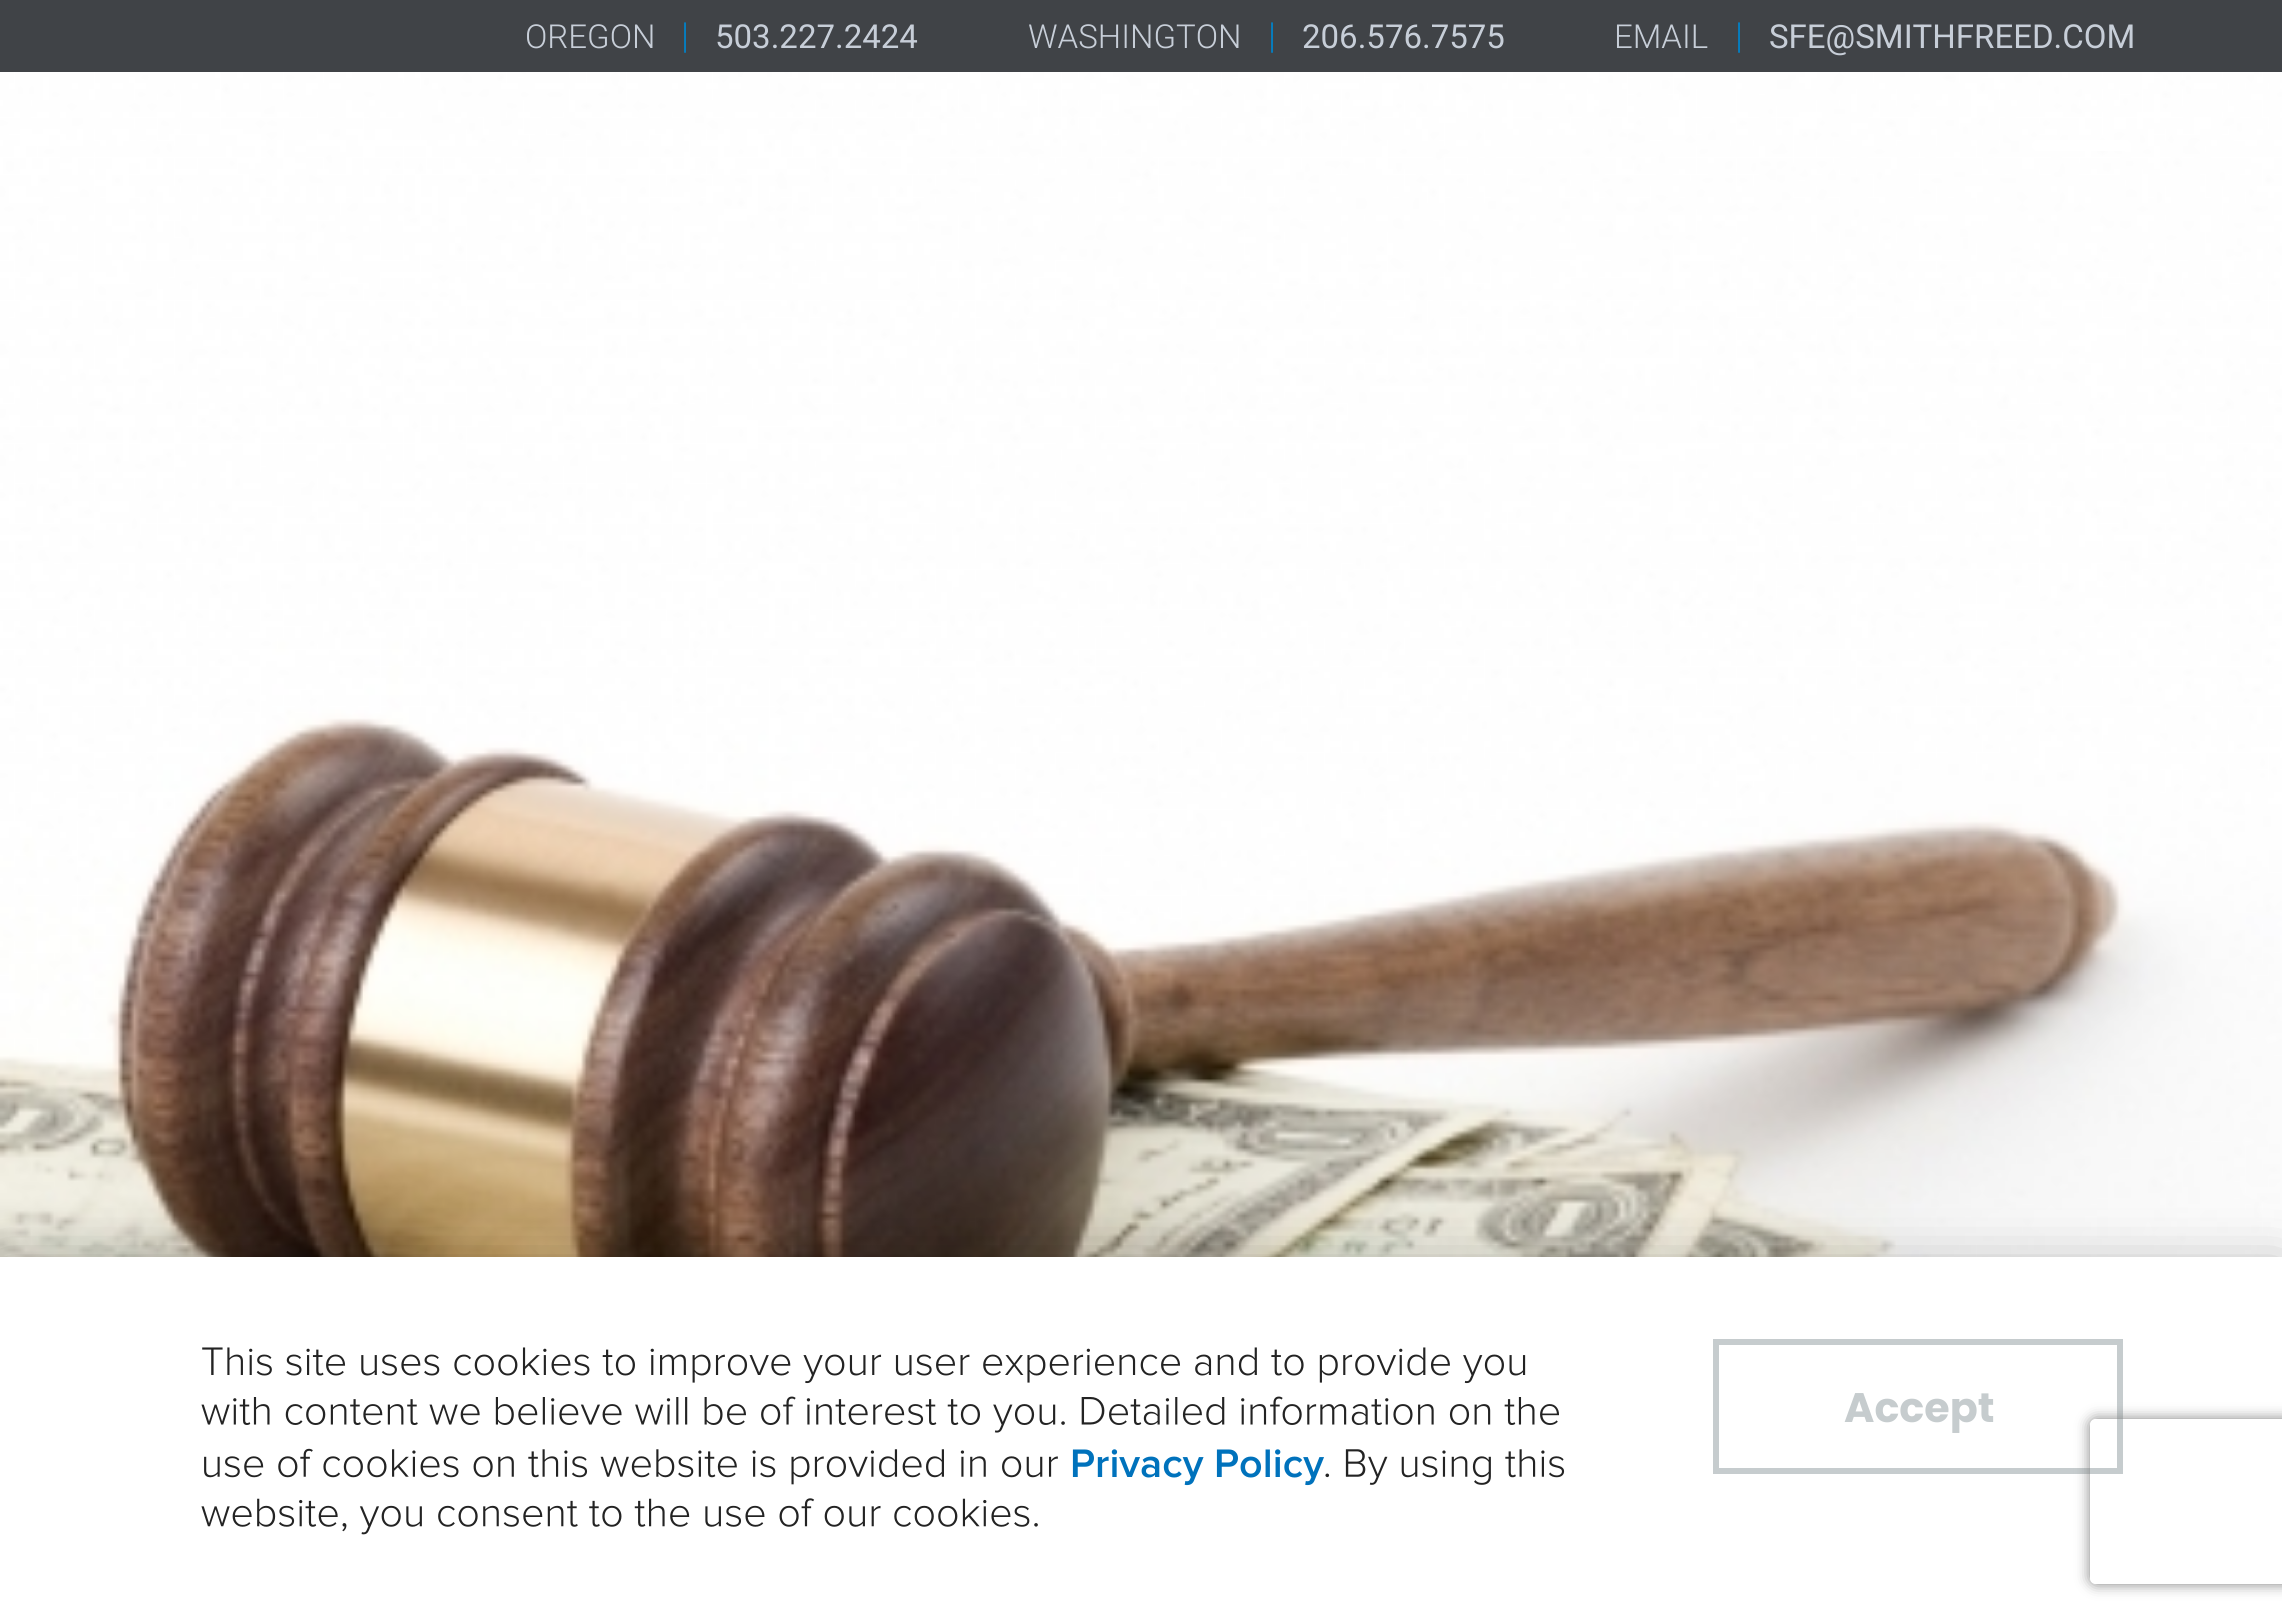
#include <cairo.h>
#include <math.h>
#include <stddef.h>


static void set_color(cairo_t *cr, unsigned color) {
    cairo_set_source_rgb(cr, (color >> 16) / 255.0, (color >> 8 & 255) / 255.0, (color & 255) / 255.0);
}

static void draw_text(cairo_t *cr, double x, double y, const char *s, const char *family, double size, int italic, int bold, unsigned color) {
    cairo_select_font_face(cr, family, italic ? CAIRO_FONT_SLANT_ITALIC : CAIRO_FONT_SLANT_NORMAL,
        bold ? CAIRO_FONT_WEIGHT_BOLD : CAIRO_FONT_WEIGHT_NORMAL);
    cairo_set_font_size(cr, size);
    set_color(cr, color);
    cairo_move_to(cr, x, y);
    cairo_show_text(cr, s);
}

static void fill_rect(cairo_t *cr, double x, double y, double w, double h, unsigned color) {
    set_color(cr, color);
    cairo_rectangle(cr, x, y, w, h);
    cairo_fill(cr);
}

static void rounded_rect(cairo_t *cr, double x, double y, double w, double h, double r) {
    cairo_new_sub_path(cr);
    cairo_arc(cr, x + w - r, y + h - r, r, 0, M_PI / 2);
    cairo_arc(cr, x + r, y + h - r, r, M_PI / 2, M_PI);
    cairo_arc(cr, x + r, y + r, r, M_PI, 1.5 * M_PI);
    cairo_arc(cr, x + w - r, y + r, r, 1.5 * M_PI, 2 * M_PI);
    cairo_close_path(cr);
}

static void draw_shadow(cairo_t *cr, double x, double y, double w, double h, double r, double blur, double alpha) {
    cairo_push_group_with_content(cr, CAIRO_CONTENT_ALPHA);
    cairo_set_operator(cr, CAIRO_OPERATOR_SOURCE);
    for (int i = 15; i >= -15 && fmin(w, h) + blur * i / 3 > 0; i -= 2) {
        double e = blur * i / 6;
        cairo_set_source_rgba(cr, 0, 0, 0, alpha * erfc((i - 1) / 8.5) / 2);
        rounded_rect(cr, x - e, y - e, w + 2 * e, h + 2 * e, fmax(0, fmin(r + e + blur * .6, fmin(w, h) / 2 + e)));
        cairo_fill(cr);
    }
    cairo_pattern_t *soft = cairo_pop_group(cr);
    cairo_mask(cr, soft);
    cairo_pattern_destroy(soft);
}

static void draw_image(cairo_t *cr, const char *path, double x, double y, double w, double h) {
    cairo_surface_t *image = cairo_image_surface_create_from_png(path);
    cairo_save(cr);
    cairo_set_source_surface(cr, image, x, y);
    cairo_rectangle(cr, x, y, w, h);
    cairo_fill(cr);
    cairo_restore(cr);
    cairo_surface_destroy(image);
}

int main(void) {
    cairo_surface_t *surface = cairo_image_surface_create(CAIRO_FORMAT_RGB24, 2282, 1622);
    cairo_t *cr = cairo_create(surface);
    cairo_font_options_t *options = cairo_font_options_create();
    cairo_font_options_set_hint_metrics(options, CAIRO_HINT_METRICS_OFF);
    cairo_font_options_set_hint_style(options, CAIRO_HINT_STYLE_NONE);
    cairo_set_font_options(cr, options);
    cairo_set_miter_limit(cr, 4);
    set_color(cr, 0xFFFFFF);
    cairo_paint(cr);
    fill_rect(cr, 0, 0, 2282, 72, 0x404347);
    draw_text(cr, 525, 48, "OREGON", "Roboto Light", 33, 0, 0, 0xC7CED8);
    draw_text(cr, 681, 48, "|", "Roboto Light", 36, 0, 0, 0x0082C8);
    draw_text(cr, 715, 48, "503.227.2424", "Roboto", 33, 0, 0, 0xC7CED8);
    draw_text(cr, 1028, 48, "WASHINGTON", "Roboto Light", 33, 0, 0, 0xC7CED8);
    draw_text(cr, 1268, 48, "|", "Roboto Light", 36, 0, 0, 0x0082C8);
    draw_text(cr, 1302, 48, "206.576.7575", "Roboto", 33, 0, 0, 0xC7CED8);
    draw_text(cr, 1614, 48, "EMAIL", "Roboto Light", 33, 0, 0, 0xC7CED8);
    draw_text(cr, 1735, 48, "|", "Roboto Light", 36, 0, 0, 0x0082C8);
    draw_text(cr, 1769, 48, "SFE@SMITHFREED.COM", "Roboto", 33, 0, 0, 0xC7CED8);
    draw_image(cr, "assets/img1.png", 0, 72, 2282, 1185);
    set_color(cr, 0xFFFFFF);
    rounded_rect(cr, 2032, 140, 99, 11, 5.5);
    cairo_fill(cr);
    set_color(cr, 0x000000);
    draw_shadow(cr, 0, 1268, 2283, 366, 0, 27.5, 0.3);
    fill_rect(cr, 0, 1257, 2282, 365, 0xFFFFFF);
    cairo_rectangle(cr, 1716, 1342, 404, 129);
    set_color(cr, 0xC6CCCE);
    cairo_set_line_width(cr, 6);
    cairo_stroke(cr);
    draw_text(cr, 1844, 1422, "Accept", "Poppins", 41.25, 0, 1, 0xC6CCCE);
    draw_image(cr, "assets/img2.png", 202, 1347, 1324, 37);
    draw_image(cr, "assets/img3.png", 201, 1396, 1358, 37);
    draw_image(cr, "assets/img4.png", 204, 1448, 854, 37);
    draw_text(cr, 1070, 1477, "Privacy Policy", "Proxima Nova SemiBold", 41.25, 0, 0, 0x0072BC);
    draw_image(cr, "assets/img5.png", 1325, 1449, 240, 36);
    draw_image(cr, "assets/img6.png", 201, 1498, 837, 37);
    cairo_save(cr);
    cairo_set_fill_rule(cr, CAIRO_FILL_RULE_EVEN_ODD);
    cairo_new_path(cr);
    cairo_move_to(cr, 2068, 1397);
    cairo_line_to(cr, 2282, 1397);
    cairo_line_to(cr, 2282, 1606);
    cairo_line_to(cr, 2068, 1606);
    cairo_close_path(cr);
    cairo_move_to(cr, 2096, 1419);
    cairo_line_to(cr, 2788, 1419);
    cairo_curve_to(cr, 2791.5, 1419, 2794, 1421.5, 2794, 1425);
    cairo_line_to(cr, 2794, 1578);
    cairo_curve_to(cr, 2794, 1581.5, 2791.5, 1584, 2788, 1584);
    cairo_line_to(cr, 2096, 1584);
    cairo_curve_to(cr, 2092.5, 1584, 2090, 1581.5, 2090, 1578);
    cairo_line_to(cr, 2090, 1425);
    cairo_curve_to(cr, 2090, 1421.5, 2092.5, 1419, 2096, 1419);
    cairo_close_path(cr);
    cairo_clip(cr);
    set_color(cr, 0x808080);
    draw_shadow(cr, 2090, 1419, 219, 165, 6, 7, 1);
    cairo_restore(cr);
    cairo_surface_write_to_png(surface, "output.png");
    cairo_font_options_destroy(options);
    cairo_destroy(cr);
    cairo_surface_destroy(surface);
    return 0;
}
